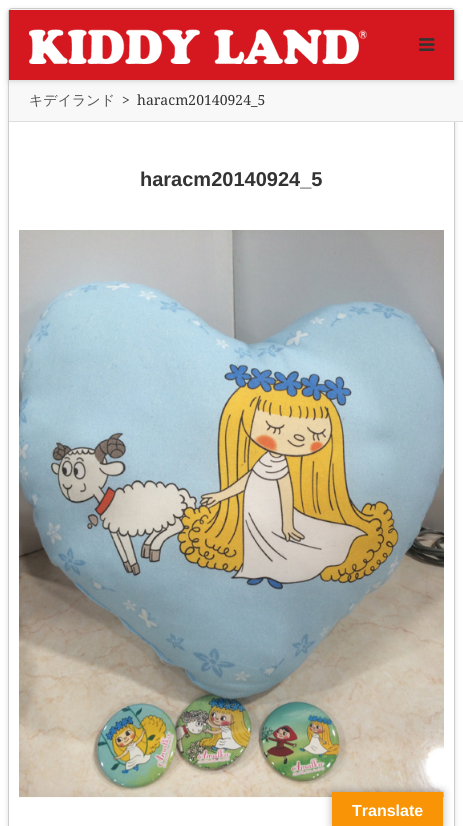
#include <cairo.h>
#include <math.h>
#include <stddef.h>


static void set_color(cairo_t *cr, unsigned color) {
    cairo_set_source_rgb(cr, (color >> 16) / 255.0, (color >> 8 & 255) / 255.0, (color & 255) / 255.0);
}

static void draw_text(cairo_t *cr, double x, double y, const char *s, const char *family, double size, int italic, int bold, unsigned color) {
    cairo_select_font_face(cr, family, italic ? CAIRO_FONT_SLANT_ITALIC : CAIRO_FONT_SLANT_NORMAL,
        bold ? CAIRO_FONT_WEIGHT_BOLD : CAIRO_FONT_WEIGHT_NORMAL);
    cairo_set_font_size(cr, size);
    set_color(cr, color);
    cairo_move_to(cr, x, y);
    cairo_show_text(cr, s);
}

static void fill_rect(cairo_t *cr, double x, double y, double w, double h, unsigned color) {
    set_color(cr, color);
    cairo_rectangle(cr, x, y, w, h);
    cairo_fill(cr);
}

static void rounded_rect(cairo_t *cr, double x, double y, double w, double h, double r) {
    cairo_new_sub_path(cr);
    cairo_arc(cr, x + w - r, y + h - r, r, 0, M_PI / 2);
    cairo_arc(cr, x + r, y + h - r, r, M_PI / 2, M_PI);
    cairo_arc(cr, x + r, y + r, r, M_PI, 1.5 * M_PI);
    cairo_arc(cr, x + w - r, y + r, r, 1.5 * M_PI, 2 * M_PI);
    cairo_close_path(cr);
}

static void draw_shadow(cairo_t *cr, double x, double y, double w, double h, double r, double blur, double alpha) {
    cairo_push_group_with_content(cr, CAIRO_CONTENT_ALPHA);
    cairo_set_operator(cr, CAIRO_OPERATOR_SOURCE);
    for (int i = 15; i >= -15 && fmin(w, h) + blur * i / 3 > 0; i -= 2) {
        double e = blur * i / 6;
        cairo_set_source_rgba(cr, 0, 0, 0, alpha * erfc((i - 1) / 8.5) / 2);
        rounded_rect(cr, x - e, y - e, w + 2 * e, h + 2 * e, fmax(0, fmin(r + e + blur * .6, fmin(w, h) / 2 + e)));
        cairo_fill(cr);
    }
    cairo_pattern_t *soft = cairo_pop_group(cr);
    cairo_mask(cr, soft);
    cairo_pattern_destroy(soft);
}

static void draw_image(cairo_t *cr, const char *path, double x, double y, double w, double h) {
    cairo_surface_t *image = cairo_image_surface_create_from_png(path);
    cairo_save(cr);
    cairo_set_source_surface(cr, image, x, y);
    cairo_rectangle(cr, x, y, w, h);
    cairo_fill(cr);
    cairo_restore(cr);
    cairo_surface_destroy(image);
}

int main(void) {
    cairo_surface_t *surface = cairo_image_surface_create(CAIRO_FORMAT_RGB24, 463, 826);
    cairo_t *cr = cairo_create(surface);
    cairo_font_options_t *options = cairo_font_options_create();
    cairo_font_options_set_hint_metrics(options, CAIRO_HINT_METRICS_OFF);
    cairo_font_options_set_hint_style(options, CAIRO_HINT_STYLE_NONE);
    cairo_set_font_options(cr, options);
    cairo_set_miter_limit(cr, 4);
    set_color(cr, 0xFFFFFF);
    cairo_paint(cr);
    cairo_save(cr);
    cairo_set_fill_rule(cr, CAIRO_FILL_RULE_EVEN_ODD);
    cairo_new_path(cr);
    cairo_move_to(cr, 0, 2);
    cairo_line_to(cr, 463, 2);
    cairo_line_to(cr, 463, 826);
    cairo_line_to(cr, 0, 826);
    cairo_close_path(cr);
    cairo_move_to(cr, 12, 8);
    cairo_line_to(cr, 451, 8);
    cairo_curve_to(cr, 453, 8, 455, 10, 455, 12);
    cairo_line_to(cr, 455, 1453);
    cairo_curve_to(cr, 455, 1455, 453, 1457, 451, 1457);
    cairo_line_to(cr, 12, 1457);
    cairo_curve_to(cr, 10, 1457, 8, 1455, 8, 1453);
    cairo_line_to(cr, 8, 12);
    cairo_curve_to(cr, 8, 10, 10, 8, 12, 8);
    cairo_close_path(cr);
    cairo_clip(cr);
    set_color(cr, 0xBEBEBE);
    draw_shadow(cr, 8, 11, 447, 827, 4, 2.5, 0.5);
    cairo_restore(cr);
    rounded_rect(cr, 8.5, 8.5, 446, 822, 3.5);
    set_color(cr, 0xCCCCCC);
    cairo_set_line_width(cr, 1);
    cairo_stroke(cr);
    fill_rect(cr, 9, 80, 454, 41, 0xF8F8F8);
    set_color(cr, 0xBEBEBE);
    draw_shadow(cr, 9, 11, 445, 70, 0, 2.5, 0.7);
    fill_rect(cr, 9, 10, 445, 70, 0xD5181F);
    draw_image(cr, "assets/img1.png", 29, 29, 338, 35);
    draw_image(cr, "assets/img2.png", 419, 38, 16, 13);
    fill_rect(cr, 9, 121, 454, 1, 0xDDDDDD);
    draw_text(cr, 29, 105, "キデイランド", "WenQuanYi Zen Hei Medium", 14, 0, 0, 0x555555);
    draw_text(cr, 122, 105, ">", "Droid Serif", 14, 0, 0, 0x333333);
    draw_text(cr, 137, 105, "haracm20140924_5", "Droid Serif", 14, 0, 0, 0x333333);
    draw_text(cr, 140, 186, "haracm20140924_5", "Liberation Sans", 20, 0, 1, 0x333333);
    draw_image(cr, "assets/img3.png", 19, 230, 425, 568);
    set_color(cr, 0x000000);
    draw_shadow(cr, 332, 792, 111, 34, 0, 4.5, 0.3);
    fill_rect(cr, 332, 792, 111, 34, 0xF89406);
    draw_text(cr, 352, 816, "Translate", "Liberation Sans", 16, 0, 1, 0xFFFFFF);
    cairo_surface_write_to_png(surface, "output.png");
    cairo_font_options_destroy(options);
    cairo_destroy(cr);
    cairo_surface_destroy(surface);
    return 0;
}
